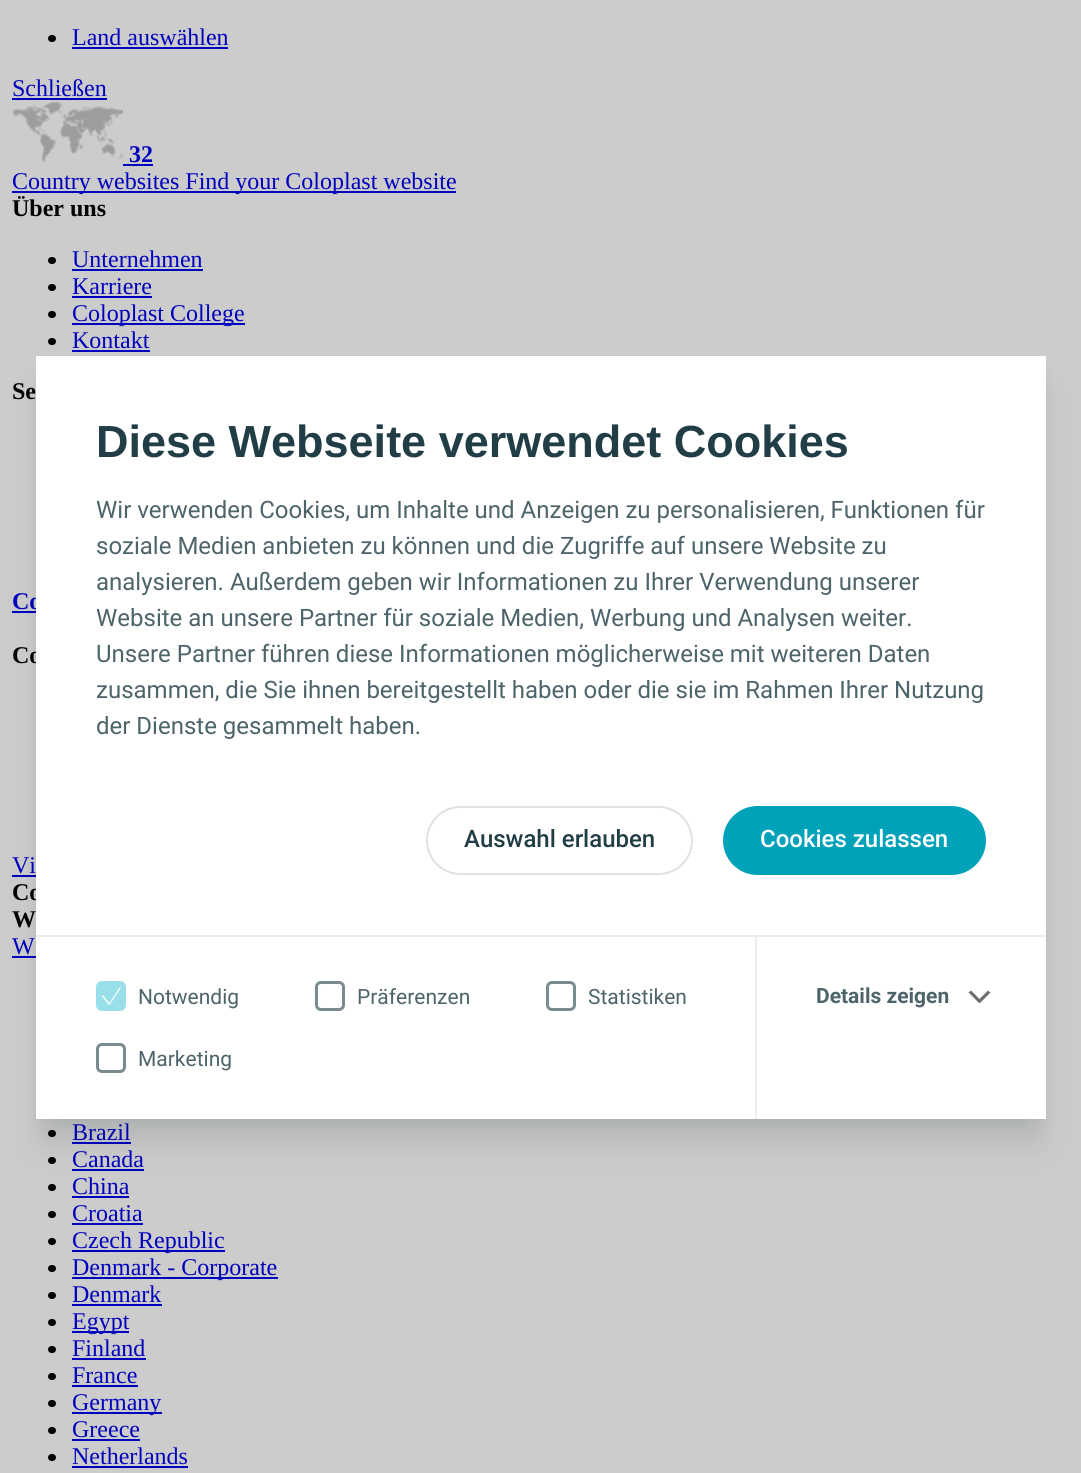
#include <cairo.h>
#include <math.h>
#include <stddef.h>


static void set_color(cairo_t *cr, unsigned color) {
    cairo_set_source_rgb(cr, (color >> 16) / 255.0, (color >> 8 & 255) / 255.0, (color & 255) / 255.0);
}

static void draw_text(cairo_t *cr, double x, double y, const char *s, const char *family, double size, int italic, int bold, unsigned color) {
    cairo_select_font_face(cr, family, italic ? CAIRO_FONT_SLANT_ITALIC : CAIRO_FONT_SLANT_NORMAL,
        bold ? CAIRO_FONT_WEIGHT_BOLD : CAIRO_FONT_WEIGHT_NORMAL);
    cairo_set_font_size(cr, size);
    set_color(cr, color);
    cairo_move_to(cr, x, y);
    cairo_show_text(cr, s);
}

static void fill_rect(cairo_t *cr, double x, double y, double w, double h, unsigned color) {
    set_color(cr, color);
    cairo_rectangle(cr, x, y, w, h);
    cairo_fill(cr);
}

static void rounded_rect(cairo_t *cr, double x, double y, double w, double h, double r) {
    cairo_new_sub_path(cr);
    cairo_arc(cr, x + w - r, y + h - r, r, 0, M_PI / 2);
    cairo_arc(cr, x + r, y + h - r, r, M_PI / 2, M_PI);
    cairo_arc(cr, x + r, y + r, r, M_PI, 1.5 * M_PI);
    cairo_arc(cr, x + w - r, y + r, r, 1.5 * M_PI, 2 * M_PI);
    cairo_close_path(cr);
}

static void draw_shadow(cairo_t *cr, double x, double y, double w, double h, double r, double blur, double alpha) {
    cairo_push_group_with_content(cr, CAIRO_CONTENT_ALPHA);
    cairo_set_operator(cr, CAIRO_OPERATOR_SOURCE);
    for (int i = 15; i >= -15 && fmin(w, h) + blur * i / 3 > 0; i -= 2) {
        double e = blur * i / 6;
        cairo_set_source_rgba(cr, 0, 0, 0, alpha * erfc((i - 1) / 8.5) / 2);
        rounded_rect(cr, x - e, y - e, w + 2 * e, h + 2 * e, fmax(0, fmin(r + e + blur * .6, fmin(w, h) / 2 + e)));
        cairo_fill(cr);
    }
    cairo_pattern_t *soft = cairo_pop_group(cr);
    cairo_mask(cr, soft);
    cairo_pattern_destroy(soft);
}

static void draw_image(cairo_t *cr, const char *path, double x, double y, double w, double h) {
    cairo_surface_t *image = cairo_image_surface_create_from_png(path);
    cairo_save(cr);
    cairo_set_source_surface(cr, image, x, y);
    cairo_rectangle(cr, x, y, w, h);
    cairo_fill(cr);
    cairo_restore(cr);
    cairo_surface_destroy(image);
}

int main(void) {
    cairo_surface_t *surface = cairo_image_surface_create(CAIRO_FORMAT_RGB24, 1081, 1473);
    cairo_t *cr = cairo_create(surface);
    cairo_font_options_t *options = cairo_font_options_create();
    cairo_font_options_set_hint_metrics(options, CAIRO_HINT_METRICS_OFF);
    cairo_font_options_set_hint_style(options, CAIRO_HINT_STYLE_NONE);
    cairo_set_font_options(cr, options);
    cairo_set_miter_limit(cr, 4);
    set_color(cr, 0xCCCCCC);
    cairo_paint(cr);
    set_color(cr, 0x000000);
    rounded_rect(cr, 48, 35, 8, 7, 3.5);
    cairo_fill(cr);
    draw_text(cr, 72, 45, "Land auswählen", "Liberation Serif", 24, 0, 0, 0x0000BE);
    fill_rect(cr, 72, 47, 156, 2, 0x0000BE);
    draw_text(cr, 12, 96, "Schließen", "Liberation Serif", 24, 0, 0, 0x0000BE);
    fill_rect(cr, 12, 98, 95, 2, 0x0000BE);
    draw_image(cr, "assets/img1.png", 12, 102, 111, 60);
    draw_text(cr, 129, 162, "32", "Liberation Serif", 24, 0, 1, 0x0000BE);
    fill_rect(cr, 123, 164, 30, 2, 0x0000BE);
    fill_rect(cr, 12, 191, 444, 2, 0x0000BE);
    draw_text(cr, 12, 189, "Country websites Find your Coloplast website", "Liberation Serif", 24, 0, 0, 0x0000BE);
    draw_text(cr, 12, 216, "Über uns", "Liberation Serif", 24, 0, 1, 0x000000);
    rounded_rect(cr, 48, 257, 8, 7, 3.5);
    cairo_fill(cr);
    draw_text(cr, 72, 267, "Unternehmen", "Liberation Serif", 24, 0, 0, 0x0000BE);
    fill_rect(cr, 72, 269, 131, 2, 0x0000BE);
    set_color(cr, 0x000000);
    rounded_rect(cr, 48, 284, 8, 7, 3.5);
    cairo_fill(cr);
    draw_text(cr, 72, 294, "Karriere", "Liberation Serif", 24, 0, 0, 0x0000BE);
    fill_rect(cr, 72, 296, 80, 2, 0x0000BE);
    set_color(cr, 0x000000);
    rounded_rect(cr, 48, 311, 8, 7, 3.5);
    cairo_fill(cr);
    fill_rect(cr, 72, 323, 173, 2, 0x0000BE);
    draw_text(cr, 72, 321, "Coloplast College", "Liberation Serif", 24, 0, 0, 0x0000BE);
    set_color(cr, 0x000000);
    rounded_rect(cr, 48, 338, 8, 7, 3.5);
    cairo_fill(cr);
    draw_text(cr, 72, 348, "Kontakt", "Liberation Serif", 24, 0, 0, 0x0000BE);
    fill_rect(cr, 72, 350, 78, 2, 0x0000BE);
    draw_text(cr, 12, 399, "Se", "Liberation Serif", 24, 0, 1, 0x000000);
    draw_text(cr, 12, 609, "Co", "Liberation Serif", 24, 0, 1, 0x0000BE);
    fill_rect(cr, 12, 611, 24, 2, 0x0000BE);
    draw_text(cr, 12, 663, "Co", "Liberation Serif", 24, 0, 1, 0x000000);
    draw_text(cr, 12, 873, "Vi", "Liberation Serif", 24, 0, 0, 0x0000BE);
    fill_rect(cr, 12, 875, 24, 2, 0x0000BE);
    draw_text(cr, 12, 900, "Co", "Liberation Serif", 24, 0, 1, 0x000000);
    draw_text(cr, 12, 927, "W", "Liberation Serif", 24, 0, 1, 0x000000);
    draw_text(cr, 12, 954, "W", "Liberation Serif", 24, 0, 0, 0x0000BE);
    fill_rect(cr, 12, 956, 24, 2, 0x0000BE);
    set_color(cr, 0x000000);
    rounded_rect(cr, 48, 1130, 8, 7, 3.5);
    cairo_fill(cr);
    draw_text(cr, 72, 1140, "Brazil", "Liberation Serif", 24, 0, 0, 0x0000BE);
    fill_rect(cr, 72, 1142, 59, 2, 0x0000BE);
    set_color(cr, 0x000000);
    rounded_rect(cr, 48, 1157, 8, 7, 3.5);
    cairo_fill(cr);
    draw_text(cr, 72, 1167, "Canada", "Liberation Serif", 24, 0, 0, 0x0000BE);
    fill_rect(cr, 72, 1169, 72, 2, 0x0000BE);
    set_color(cr, 0x000000);
    rounded_rect(cr, 48, 1184, 8, 7, 3.5);
    cairo_fill(cr);
    draw_text(cr, 72, 1194, "China", "Liberation Serif", 24, 0, 0, 0x0000BE);
    fill_rect(cr, 72, 1196, 57, 2, 0x0000BE);
    set_color(cr, 0x000000);
    rounded_rect(cr, 48, 1211, 8, 7, 3.5);
    cairo_fill(cr);
    draw_text(cr, 72, 1221, "Croatia", "Liberation Serif", 24, 0, 0, 0x0000BE);
    fill_rect(cr, 72, 1223, 71, 2, 0x0000BE);
    set_color(cr, 0x000000);
    rounded_rect(cr, 48, 1238, 8, 7, 3.5);
    cairo_fill(cr);
    fill_rect(cr, 72, 1250, 153, 2, 0x0000BE);
    draw_text(cr, 72, 1248, "Czech Republic", "Liberation Serif", 24, 0, 0, 0x0000BE);
    set_color(cr, 0x000000);
    rounded_rect(cr, 48, 1265, 8, 7, 3.5);
    cairo_fill(cr);
    fill_rect(cr, 72, 1277, 206, 2, 0x0000BE);
    draw_text(cr, 72, 1275, "Denmark - Corporate", "Liberation Serif", 24, 0, 0, 0x0000BE);
    set_color(cr, 0x000000);
    rounded_rect(cr, 48, 1292, 8, 7, 3.5);
    cairo_fill(cr);
    draw_text(cr, 72, 1302, "Denmark", "Liberation Serif", 24, 0, 0, 0x0000BE);
    fill_rect(cr, 72, 1304, 90, 2, 0x0000BE);
    set_color(cr, 0x000000);
    rounded_rect(cr, 48, 1319, 8, 7, 3.5);
    cairo_fill(cr);
    fill_rect(cr, 72, 1331, 57, 2, 0x0000BE);
    draw_text(cr, 72, 1329, "Egypt", "Liberation Serif", 24, 0, 0, 0x0000BE);
    set_color(cr, 0x000000);
    rounded_rect(cr, 48, 1346, 8, 7, 3.5);
    cairo_fill(cr);
    draw_text(cr, 72, 1356, "Finland", "Liberation Serif", 24, 0, 0, 0x0000BE);
    fill_rect(cr, 72, 1358, 74, 2, 0x0000BE);
    set_color(cr, 0x000000);
    rounded_rect(cr, 48, 1373, 8, 7, 3.5);
    cairo_fill(cr);
    draw_text(cr, 72, 1383, "France", "Liberation Serif", 24, 0, 0, 0x0000BE);
    fill_rect(cr, 72, 1385, 66, 2, 0x0000BE);
    set_color(cr, 0x000000);
    rounded_rect(cr, 48, 1400, 8, 7, 3.5);
    cairo_fill(cr);
    fill_rect(cr, 72, 1412, 90, 2, 0x0000BE);
    draw_text(cr, 72, 1410, "Germany", "Liberation Serif", 24, 0, 0, 0x0000BE);
    set_color(cr, 0x000000);
    rounded_rect(cr, 48, 1427, 8, 7, 3.5);
    cairo_fill(cr);
    draw_text(cr, 72, 1437, "Greece", "Liberation Serif", 24, 0, 0, 0x0000BE);
    fill_rect(cr, 72, 1439, 68, 2, 0x0000BE);
    set_color(cr, 0x000000);
    rounded_rect(cr, 48, 1454, 8, 7, 3.5);
    cairo_fill(cr);
    draw_text(cr, 72, 1464, "Netherlands", "Liberation Serif", 24, 0, 0, 0x0000BE);
    fill_rect(cr, 72, 1466, 116, 2, 0x0000BE);
    set_color(cr, 0x15272D);
    draw_shadow(cr, 42, 392, 998, 751, 0, 18, 0.12);
    draw_shadow(cr, 42, 374, 998, 751, 0, 9, 0.08);
    fill_rect(cr, 36, 356, 1010, 763, 0xFFFFFF);
    draw_text(cr, 96, 457, "Diese Webseite verwendet Cookies", "Liberation Sans", 45, 0, 1, 0x213D46);
    draw_text(cr, 96, 518, "Wir verwenden Cookies, um Inhalte und Anzeigen zu personalisieren, Funktionen für", "Roboto", 24, 0, 0, 0x4D646B);
    draw_text(cr, 96, 554, "soziale Medien anbieten zu können und die Zugriffe auf unsere Website zu", "Roboto", 24, 0, 0, 0x4D646B);
    draw_text(cr, 96, 590, "analysieren. Außerdem geben wir Informationen zu Ihrer Verwendung unserer", "Roboto", 24, 0, 0, 0x4D646B);
    draw_text(cr, 96, 626, "Website an unsere Partner für soziale Medien, Werbung und Analysen weiter.", "Roboto", 24, 0, 0, 0x4D646B);
    draw_text(cr, 96, 662, "Unsere Partner führen diese Informationen möglicherweise mit weiteren Daten", "Roboto", 24, 0, 0, 0x4D646B);
    draw_text(cr, 96, 698, "zusammen, die Sie ihnen bereitgestellt haben oder die sie im Rahmen Ihrer Nutzung", "Roboto", 24, 0, 0, 0x4D646B);
    draw_text(cr, 96, 734, "der Dienste gesammelt haben.", "Roboto", 24, 0, 0, 0x4D646B);
    rounded_rect(cr, 427, 807, 265, 67, 33.5);
    set_color(cr, 0xDDE2E4);
    cairo_stroke(cr);
    draw_text(cr, 464, 847, "Auswahl erlauben", "Roboto Medium", 24, 0, 0, 0x213D46);
    set_color(cr, 0x00A2BA);
    rounded_rect(cr, 724, 807, 261, 67, 33.5);
    cairo_fill_preserve(cr);
    cairo_stroke(cr);
    draw_text(cr, 760, 847, "Cookies zulassen", "Roboto Medium", 24, 0, 0, 0xFFFFFF);
    fill_rect(cr, 36, 935, 1010, 2, 0xEDEDED);
    set_color(cr, 0x99DFEA);
    rounded_rect(cr, 97.5, 982.5, 27, 27, 4.5);
    cairo_fill_preserve(cr);
    cairo_set_line_width(cr, 3);
    cairo_stroke(cr);
    set_color(cr, 0xFFFFFF);
    cairo_new_path(cr);
    cairo_move_to(cr, 120, 987);
    cairo_line_to(cr, 121, 987.5);
    cairo_line_to(cr, 109.5, 1005);
    cairo_line_to(cr, 108.5, 1004.5);
    cairo_close_path(cr);
    cairo_fill(cr);
    cairo_new_path(cr);
    cairo_move_to(cr, 102, 996);
    cairo_line_to(cr, 103, 995);
    cairo_line_to(cr, 109.5, 1003.5);
    cairo_line_to(cr, 108.5, 1004.5);
    cairo_close_path(cr);
    cairo_fill(cr);
    draw_text(cr, 138, 1004, "Notwendig", "Roboto", 21, 0, 0, 0x4D646B);
    rounded_rect(cr, 316.5, 982.5, 27, 27, 4.5);
    set_color(cr, 0x7A8B90);
    cairo_stroke(cr);
    draw_text(cr, 357, 1004, "Präferenzen", "Roboto", 21, 0, 0, 0x4D646B);
    rounded_rect(cr, 547.5, 982.5, 27, 27, 4.5);
    set_color(cr, 0x7A8B90);
    cairo_stroke(cr);
    draw_text(cr, 588, 1004, "Statistiken", "Roboto", 21, 0, 0, 0x4D646B);
    rounded_rect(cr, 97.5, 1044.5, 27, 27, 4.5);
    set_color(cr, 0x7A8B90);
    cairo_stroke(cr);
    draw_text(cr, 138, 1066, "Marketing", "Roboto", 21, 0, 0, 0x4D646B);
    fill_rect(cr, 755, 936, 2, 183, 0xEDEDED);
    draw_text(cr, 816, 1003, "Details zeigen", "Roboto", 21, 0, 1, 0x4D646B);
    set_color(cr, 0x6C6F70);
    cairo_new_path(cr);
    cairo_move_to(cr, 968.5, 992.5);
    cairo_line_to(cr, 971, 990.5);
    cairo_line_to(cr, 981.5, 1001);
    cairo_line_to(cr, 979, 1003);
    cairo_close_path(cr);
    cairo_fill(cr);
    cairo_new_path(cr);
    cairo_move_to(cr, 988, 990.5);
    cairo_line_to(cr, 990.5, 992.5);
    cairo_line_to(cr, 980, 1003);
    cairo_line_to(cr, 977.5, 1001);
    cairo_close_path(cr);
    cairo_fill(cr);
    cairo_surface_write_to_png(surface, "output.png");
    cairo_font_options_destroy(options);
    cairo_destroy(cr);
    cairo_surface_destroy(surface);
    return 0;
}
